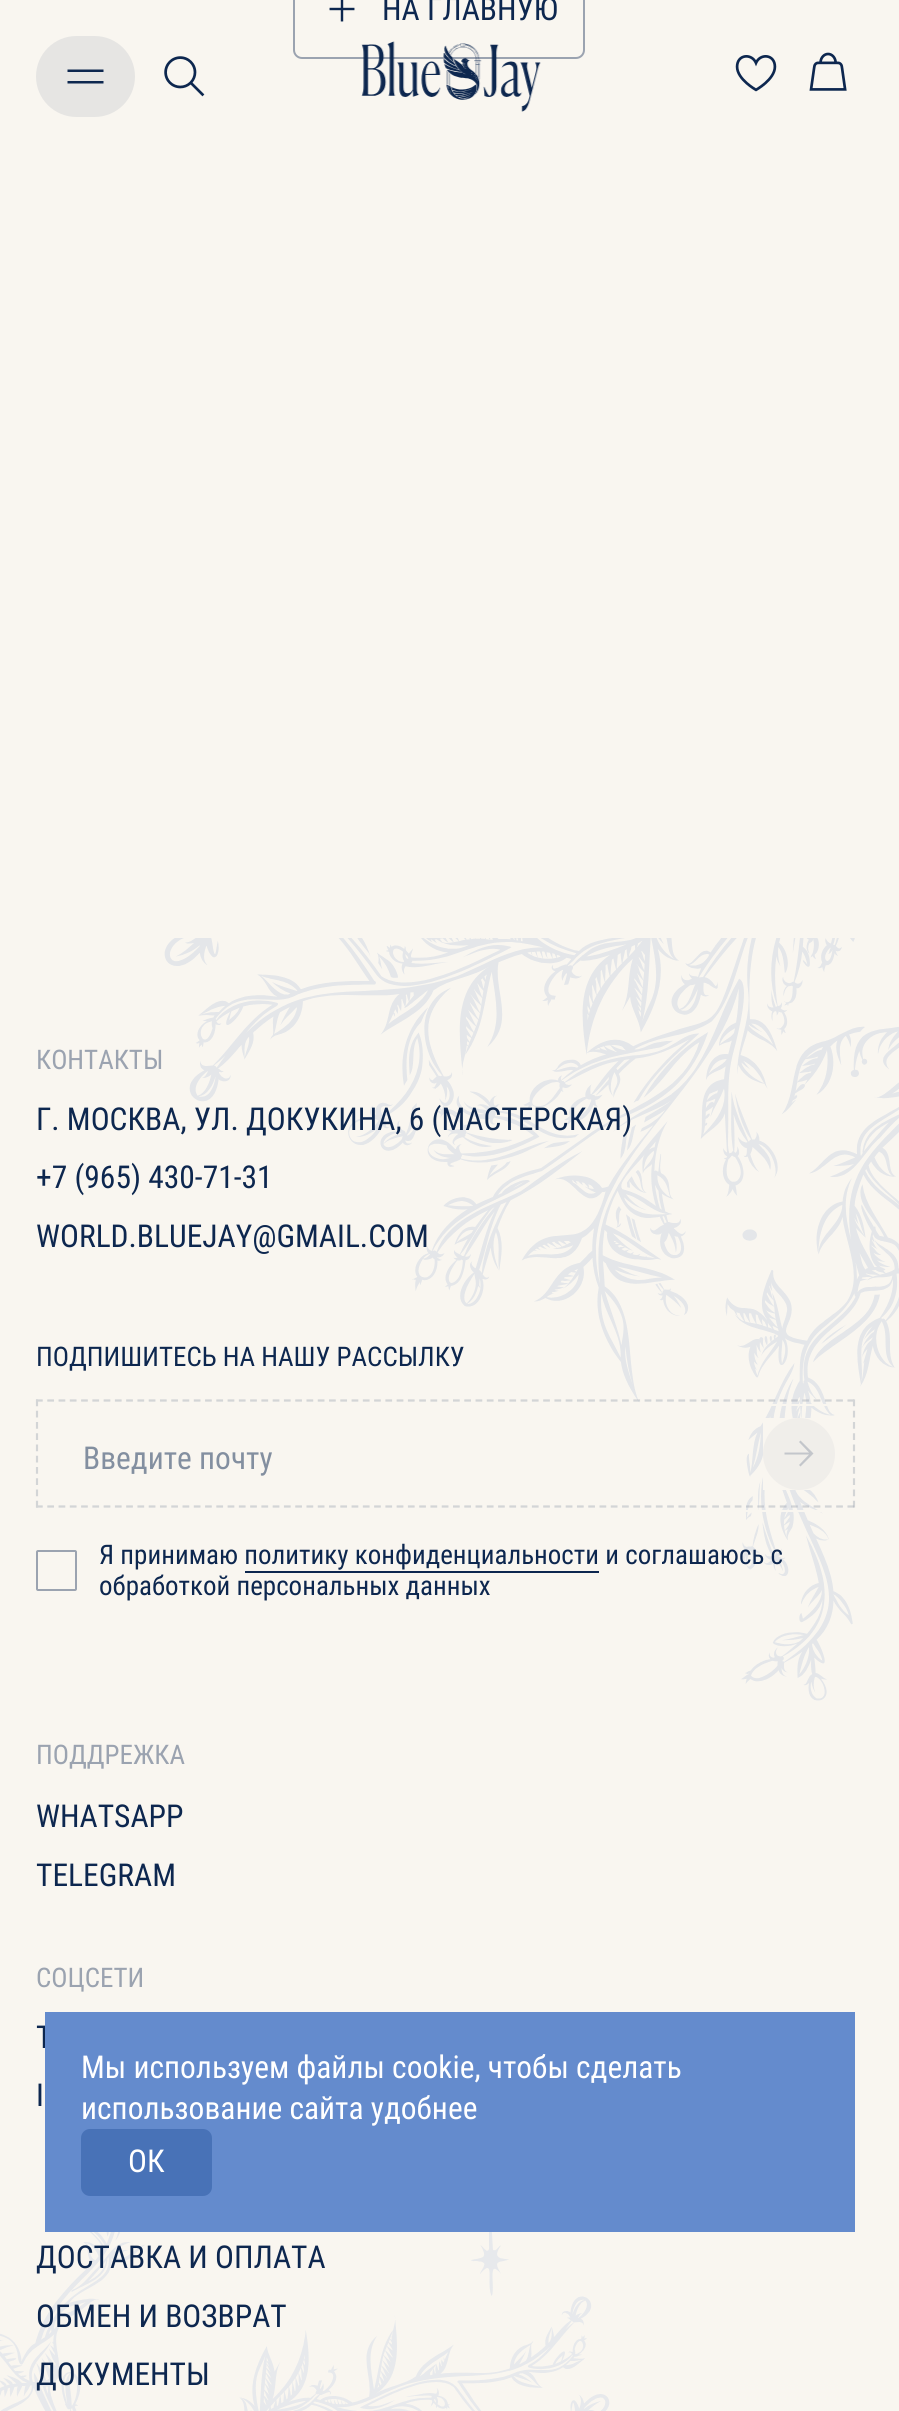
#include <cairo.h>
#include <math.h>
#include <stddef.h>


static void set_color(cairo_t *cr, unsigned color) {
    cairo_set_source_rgb(cr, (color >> 16) / 255.0, (color >> 8 & 255) / 255.0, (color & 255) / 255.0);
}

static void draw_text(cairo_t *cr, double x, double y, const char *s, const char *family, double size, int italic, int bold, unsigned color) {
    cairo_select_font_face(cr, family, italic ? CAIRO_FONT_SLANT_ITALIC : CAIRO_FONT_SLANT_NORMAL,
        bold ? CAIRO_FONT_WEIGHT_BOLD : CAIRO_FONT_WEIGHT_NORMAL);
    cairo_set_font_size(cr, size);
    set_color(cr, color);
    cairo_move_to(cr, x, y);
    cairo_show_text(cr, s);
}

static void fill_rect(cairo_t *cr, double x, double y, double w, double h, unsigned color) {
    set_color(cr, color);
    cairo_rectangle(cr, x, y, w, h);
    cairo_fill(cr);
}

static void rounded_rect(cairo_t *cr, double x, double y, double w, double h, double r) {
    cairo_new_sub_path(cr);
    cairo_arc(cr, x + w - r, y + h - r, r, 0, M_PI / 2);
    cairo_arc(cr, x + r, y + h - r, r, M_PI / 2, M_PI);
    cairo_arc(cr, x + r, y + r, r, M_PI, 1.5 * M_PI);
    cairo_arc(cr, x + w - r, y + r, r, 1.5 * M_PI, 2 * M_PI);
    cairo_close_path(cr);
}

static void draw_image(cairo_t *cr, const char *path, double x, double y, double w, double h) {
    cairo_surface_t *image = cairo_image_surface_create_from_png(path);
    cairo_save(cr);
    cairo_set_source_surface(cr, image, x, y);
    cairo_rectangle(cr, x, y, w, h);
    cairo_fill(cr);
    cairo_restore(cr);
    cairo_surface_destroy(image);
}

int main(void) {
    cairo_surface_t *surface = cairo_image_surface_create(CAIRO_FORMAT_RGB24, 899, 2411);
    cairo_t *cr = cairo_create(surface);
    cairo_font_options_t *options = cairo_font_options_create();
    cairo_font_options_set_hint_metrics(options, CAIRO_HINT_METRICS_OFF);
    cairo_font_options_set_hint_style(options, CAIRO_HINT_STYLE_NONE);
    cairo_set_font_options(cr, options);
    cairo_set_miter_limit(cr, 4);
    set_color(cr, 0xF9F6F0);
    cairo_paint(cr);
    rounded_rect(cr, 294, -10, 290, 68, 8);
    set_color(cr, 0x9BA3B0);
    cairo_stroke(cr);
    draw_image(cr, "assets/img1.png", 329, 0, 26, 22);
    draw_text(cr, 382, 20, "НА ГЛАВНУЮ", "Roboto Condensed", 31.5, 0, 0, 0x0D274F);
    set_color(cr, 0xE6E5E3);
    rounded_rect(cr, 36, 36, 99, 81, 40.5);
    cairo_fill(cr);
    draw_image(cr, "assets/img2.png", 164, 56, 41, 41);
    draw_image(cr, "assets/img3.png", 361, 41, 180, 71);
    draw_image(cr, "assets/img4.png", 735, 55, 42, 37);
    draw_image(cr, "assets/img5.png", 809, 52, 38, 39);
    set_color(cr, 0x0D274F);
    cairo_set_fill_rule(cr, CAIRO_FILL_RULE_EVEN_ODD);
    cairo_new_path(cr);
    cairo_move_to(cr, 67.5, 69.5);
    cairo_line_to(cr, 103.5, 69.5);
    cairo_line_to(cr, 103.5, 72);
    cairo_line_to(cr, 67.5, 72);
    cairo_close_path(cr);
    cairo_move_to(cr, 67.5, 81);
    cairo_line_to(cr, 103.5, 81);
    cairo_line_to(cr, 103.5, 83.5);
    cairo_line_to(cr, 67.5, 83.5);
    cairo_close_path(cr);
    cairo_fill(cr);
    draw_text(cr, 36, 1069, "КОНТАКТЫ", "Roboto Condensed", 27, 0, 0, 0x9BA3B0);
    draw_image(cr, "assets/img6.png", 164, 938, 735, 763);
    draw_text(cr, 36, 1130, "Г. МОСКВА, УЛ. ДОКУКИНА, 6 (МАСТЕРСКАЯ)", "Roboto Condensed", 31.5, 0, 0, 0x0D274F);
    draw_text(cr, 36, 1188, "+7 (965) 430-71-31", "Roboto Condensed", 31.5, 0, 0, 0x0D274F);
    draw_text(cr, 36, 1247, "WORLD.BLUEJAY@GMAIL.COM", "Roboto Condensed", 31.5, 0, 0, 0x0D274F);
    draw_text(cr, 36, 1366, "ПОДПИШИТЕСЬ НА НАШУ РАССЫЛКУ", "Roboto Condensed", 27, 0, 0, 0x0D274F);
    cairo_new_path(cr);
    cairo_move_to(cr, 36, 1400.5);
    cairo_line_to(cr, 855, 1400.5);
    cairo_set_source_rgba(cr, 0.608, 0.639, 0.69, 0.4);
    cairo_set_line_width(cr, 2.2);
    cairo_set_dash(cr, (double[]){6.75, 4.52}, 2, 0);
    cairo_stroke(cr);
    cairo_rectangle(cr, 37, 1405, 817, 106);
    set_color(cr, 0xF9F6F0);
    cairo_set_line_width(cr, 2);
    cairo_set_dash(cr, NULL, 0, 0);
    cairo_stroke(cr);
    cairo_new_path(cr);
    cairo_move_to(cr, 854, 1399.5);
    cairo_line_to(cr, 854, 1507.5);
    set_color(cr, 0xD3D5D6);
    cairo_set_line_width(cr, 2.2);
    cairo_set_dash(cr, (double[]){6.75, 4.5}, 2, 0);
    cairo_stroke(cr);
    cairo_new_path(cr);
    cairo_move_to(cr, 36, 1506.5);
    cairo_line_to(cr, 855, 1506.5);
    cairo_set_source_rgba(cr, 0.608, 0.639, 0.69, 0.4);
    cairo_set_dash(cr, (double[]){6.75, 4.52}, 2, 0);
    cairo_stroke(cr);
    cairo_new_path(cr);
    cairo_move_to(cr, 37, 1399.5);
    cairo_line_to(cr, 37, 1507.5);
    set_color(cr, 0xD3D5D6);
    cairo_set_dash(cr, (double[]){6.75, 4.5}, 2, 0);
    cairo_stroke(cr);
    draw_text(cr, 83, 1469, "Введите почту", "Roboto Condensed", 31.5, 0, 0, 0x838FA0);
    rounded_rect(cr, 37, 1551, 39, 39, 1);
    set_color(cr, 0x9BA3B0);
    cairo_set_line_width(cr, 2);
    cairo_set_dash(cr, NULL, 0, 0);
    cairo_stroke(cr);
    draw_text(cr, 99, 1564, "Я принимаю политику конфиденциальности и соглашаюсь с", "Roboto Condensed", 27, 0, 0, 0x0D274F);
    fill_rect(cr, 245, 1571, 354, 2, 0x0D274F);
    draw_text(cr, 99, 1595, "обработкой персональных данных", "Roboto Condensed", 27, 0, 0, 0x0D274F);
    fill_rect(cr, 763, 1418, 49, 72, 0xF9F6F0);
    set_color(cr, 0xF0EEEA);
    cairo_new_path(cr);
    cairo_arc(cr, 799, 1454, 36, 0, 2 * M_PI);
    cairo_fill(cr);
    set_color(cr, 0xC3C6CB);
    cairo_new_path(cr);
    cairo_move_to(cr, 800.5, 1440.5);
    cairo_line_to(cr, 813.5, 1453.5);
    cairo_line_to(cr, 800.5, 1466.5);
    cairo_line_to(cr, 799, 1465);
    cairo_line_to(cr, 809, 1454.5);
    cairo_line_to(cr, 784.5, 1454.5);
    cairo_line_to(cr, 784.5, 1452.5);
    cairo_line_to(cr, 809, 1452.5);
    cairo_line_to(cr, 799, 1442);
    cairo_close_path(cr);
    cairo_fill(cr);
    draw_text(cr, 36, 1764, "ПОДДРЕЖКА", "Roboto Condensed", 27, 0, 0, 0x9BA3B0);
    draw_text(cr, 36, 1827, "WHATSAPP", "Roboto Condensed", 31.5, 0, 0, 0x0D274F);
    draw_text(cr, 36, 1886, "TELEGRAM", "Roboto Condensed", 31.5, 0, 0, 0x0D274F);
    draw_text(cr, 36, 1987, "СОЦСЕТИ", "Roboto Condensed", 27, 0, 0, 0x9BA3B0);
    draw_text(cr, 36, 2048, "T", "Roboto Condensed", 31.5, 0, 0, 0x0D274F);
    draw_text(cr, 36, 2106, "I", "Roboto Condensed", 31.5, 0, 0, 0x0D274F);
    draw_image(cr, "assets/img7.png", 0, 2232, 610, 179);
    draw_text(cr, 36, 2268, "ДОСТАВКА И ОПЛАТА", "Roboto Condensed", 31.5, 0, 0, 0x0D274F);
    draw_text(cr, 36, 2327, "ОБМЕН И ВОЗВРАТ", "Roboto Condensed", 31.5, 0, 0, 0x0D274F);
    draw_text(cr, 36, 2385, "ДОКУМЕНТЫ", "Roboto Condensed", 31.5, 0, 0, 0x0D274F);
    fill_rect(cr, 45, 2012, 810, 220, 0x648BCD);
    draw_text(cr, 81, 2078, "Мы используем файлы cookie, чтобы сделать", "Roboto Condensed", 31.5, 0, 0, 0xFFFFFF);
    draw_text(cr, 81, 2119, "использование сайта удобнее", "Roboto Condensed", 31.5, 0, 0, 0xFFFFFF);
    set_color(cr, 0x4872B7);
    rounded_rect(cr, 82, 2130, 129, 65, 8);
    cairo_fill_preserve(cr);
    cairo_stroke(cr);
    draw_text(cr, 128, 2172, "ОК", "Roboto Condensed", 31.5, 0, 0, 0xFFFFFF);
    cairo_surface_write_to_png(surface, "output.png");
    cairo_font_options_destroy(options);
    cairo_destroy(cr);
    cairo_surface_destroy(surface);
    return 0;
}
